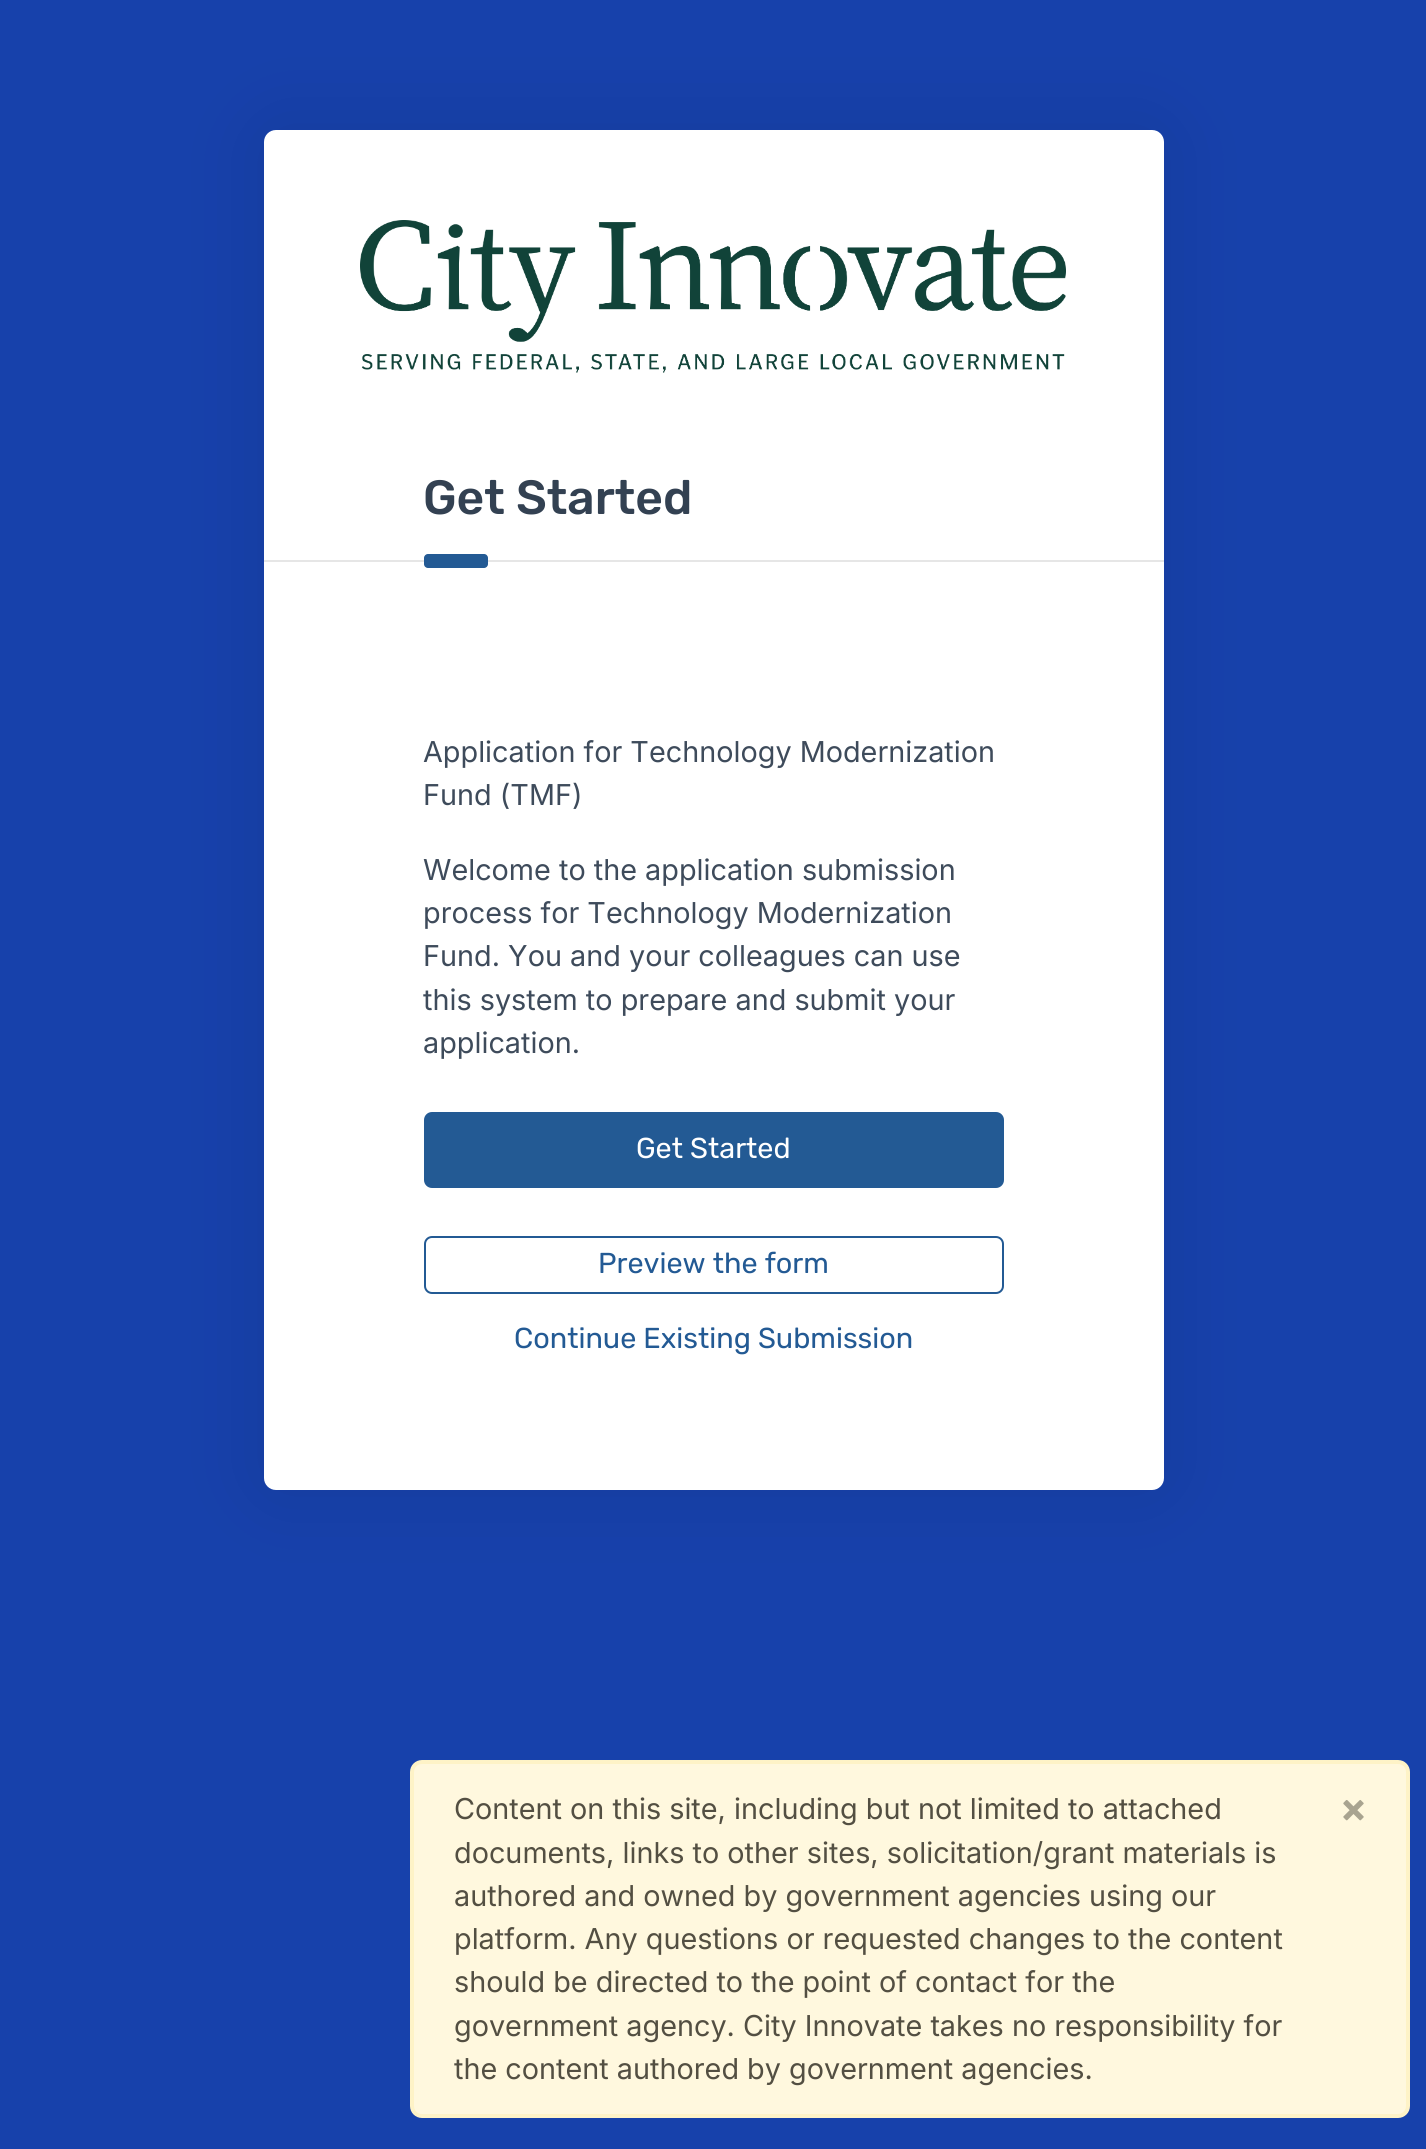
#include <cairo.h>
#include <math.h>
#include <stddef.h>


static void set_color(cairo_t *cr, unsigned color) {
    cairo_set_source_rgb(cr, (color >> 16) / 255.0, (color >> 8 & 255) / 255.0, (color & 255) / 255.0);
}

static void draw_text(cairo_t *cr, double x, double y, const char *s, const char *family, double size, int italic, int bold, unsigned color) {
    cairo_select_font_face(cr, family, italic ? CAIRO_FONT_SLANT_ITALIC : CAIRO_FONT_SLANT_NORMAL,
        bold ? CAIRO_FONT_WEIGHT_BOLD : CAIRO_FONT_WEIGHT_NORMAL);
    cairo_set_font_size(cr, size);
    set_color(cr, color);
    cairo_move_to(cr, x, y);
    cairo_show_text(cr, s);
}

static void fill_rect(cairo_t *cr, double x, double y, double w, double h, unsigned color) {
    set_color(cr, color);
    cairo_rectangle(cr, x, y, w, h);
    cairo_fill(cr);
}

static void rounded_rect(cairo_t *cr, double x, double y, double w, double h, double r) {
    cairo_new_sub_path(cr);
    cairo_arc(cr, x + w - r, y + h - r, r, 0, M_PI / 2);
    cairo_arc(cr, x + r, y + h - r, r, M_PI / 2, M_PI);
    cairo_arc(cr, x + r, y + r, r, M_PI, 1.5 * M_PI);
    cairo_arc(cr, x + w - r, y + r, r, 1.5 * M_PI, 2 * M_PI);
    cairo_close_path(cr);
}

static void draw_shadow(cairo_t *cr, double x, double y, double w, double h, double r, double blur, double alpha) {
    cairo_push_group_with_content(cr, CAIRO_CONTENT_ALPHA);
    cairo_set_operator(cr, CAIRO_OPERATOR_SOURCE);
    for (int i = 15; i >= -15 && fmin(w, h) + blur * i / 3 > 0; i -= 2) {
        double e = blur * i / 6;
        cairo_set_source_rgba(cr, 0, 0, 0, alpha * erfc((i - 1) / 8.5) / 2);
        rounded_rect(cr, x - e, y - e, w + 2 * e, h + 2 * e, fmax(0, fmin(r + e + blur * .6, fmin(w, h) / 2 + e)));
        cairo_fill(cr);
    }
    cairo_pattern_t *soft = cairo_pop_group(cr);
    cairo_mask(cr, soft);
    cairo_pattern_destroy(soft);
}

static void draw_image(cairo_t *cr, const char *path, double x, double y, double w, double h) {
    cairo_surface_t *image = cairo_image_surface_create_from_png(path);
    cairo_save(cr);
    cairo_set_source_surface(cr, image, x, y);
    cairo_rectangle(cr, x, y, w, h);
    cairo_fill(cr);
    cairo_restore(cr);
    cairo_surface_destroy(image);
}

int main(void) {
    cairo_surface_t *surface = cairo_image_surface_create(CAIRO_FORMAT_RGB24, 1426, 2149);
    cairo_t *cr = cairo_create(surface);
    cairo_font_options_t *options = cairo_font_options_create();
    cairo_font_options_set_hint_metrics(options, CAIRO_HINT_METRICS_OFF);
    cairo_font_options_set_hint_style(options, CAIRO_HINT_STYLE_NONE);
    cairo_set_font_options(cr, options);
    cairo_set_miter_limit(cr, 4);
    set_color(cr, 0x1741AB);
    cairo_paint(cr);
    set_color(cr, 0x000000);
    draw_shadow(cr, 264, 130, 900, 1360, 12, 40, 0.1);
    set_color(cr, 0xFFFFFF);
    rounded_rect(cr, 264, 130, 900, 1360, 12);
    cairo_fill(cr);
    draw_image(cr, "assets/img1.png", 360, 220, 706, 153);
    fill_rect(cr, 264, 560, 900, 2, 0xE6E6E6);
    draw_text(cr, 423, 514, "Get Started", "Rubik Medium", 48, 0, 0, 0x334152);
    set_color(cr, 0x235A94);
    rounded_rect(cr, 424, 554, 64, 14, 4);
    cairo_fill(cr);
    draw_text(cr, 423, 762, "Application for Technology Modernization", "Inter", 28.8, 0, 0, 0x3E4B5B);
    draw_text(cr, 423, 805, "Fund (TMF)", "Inter", 28.8, 0, 0, 0x3E4B5B);
    draw_text(cr, 423, 880, "Welcome to the application submission", "Inter", 28.8, 0, 0, 0x3E4B5B);
    draw_text(cr, 423, 923, "process for Technology Modernization", "Inter", 28.8, 0, 0, 0x3E4B5B);
    draw_text(cr, 423, 966, "Fund. You and your colleagues can use", "Inter", 28.8, 0, 0, 0x3E4B5B);
    draw_text(cr, 423, 1010, "this system to prepare and submit your", "Inter", 28.8, 0, 0, 0x3E4B5B);
    draw_text(cr, 423, 1053, "application.", "Inter", 28.8, 0, 0, 0x3E4B5B);
    set_color(cr, 0x235A94);
    rounded_rect(cr, 426, 1114, 576, 72, 6);
    cairo_fill_preserve(cr);
    cairo_set_line_width(cr, 4);
    cairo_stroke(cr);
    draw_text(cr, 636, 1158, "Get Started", "Rubik", 28.8, 0, 0, 0xFFFFFF);
    rounded_rect(cr, 425, 1237, 578, 56, 7);
    set_color(cr, 0x235A94);
    cairo_set_line_width(cr, 2);
    cairo_stroke(cr);
    draw_text(cr, 598, 1273, "Preview the form", "Rubik", 28.8, 0, 0, 0x235A94);
    draw_text(cr, 514, 1348, "Continue Existing Submission", "Rubik", 28.8, 0, 0, 0x235A94);
    set_color(cr, 0xFFF8DE);
    rounded_rect(cr, 412, 1762, 996, 354, 10);
    cairo_fill_preserve(cr);
    set_color(cr, 0xFEF3C7);
    cairo_set_line_width(cr, 4);
    cairo_stroke(cr);
    draw_text(cr, 454, 1819, "Content on this site, including but not limited to attached", "Inter", 28.8, 0, 0, 0x534F42);
    draw_text(cr, 1341, 1823, "×", "Rubik Medium", 43, 0, 0, 0xA9A490);
    draw_text(cr, 454, 1863, "documents, links to other sites, solicitation/grant materials is", "Inter", 28.8, 0, 0, 0x534F42);
    draw_text(cr, 454, 1906, "authored and owned by government agencies using our", "Inter", 28.8, 0, 0, 0x534F42);
    draw_text(cr, 454, 1949, "platform. Any questions or requested changes to the content", "Inter", 28.8, 0, 0, 0x534F42);
    draw_text(cr, 454, 1992, "should be directed to the point of contact for the", "Inter", 28.8, 0, 0, 0x534F42);
    draw_text(cr, 454, 2036, "government agency. City Innovate takes no responsibility for", "Inter", 28.8, 0, 0, 0x534F42);
    draw_text(cr, 454, 2079, "the content authored by government agencies.", "Inter", 28.8, 0, 0, 0x534F42);
    cairo_surface_write_to_png(surface, "output.png");
    cairo_font_options_destroy(options);
    cairo_destroy(cr);
    cairo_surface_destroy(surface);
    return 0;
}
